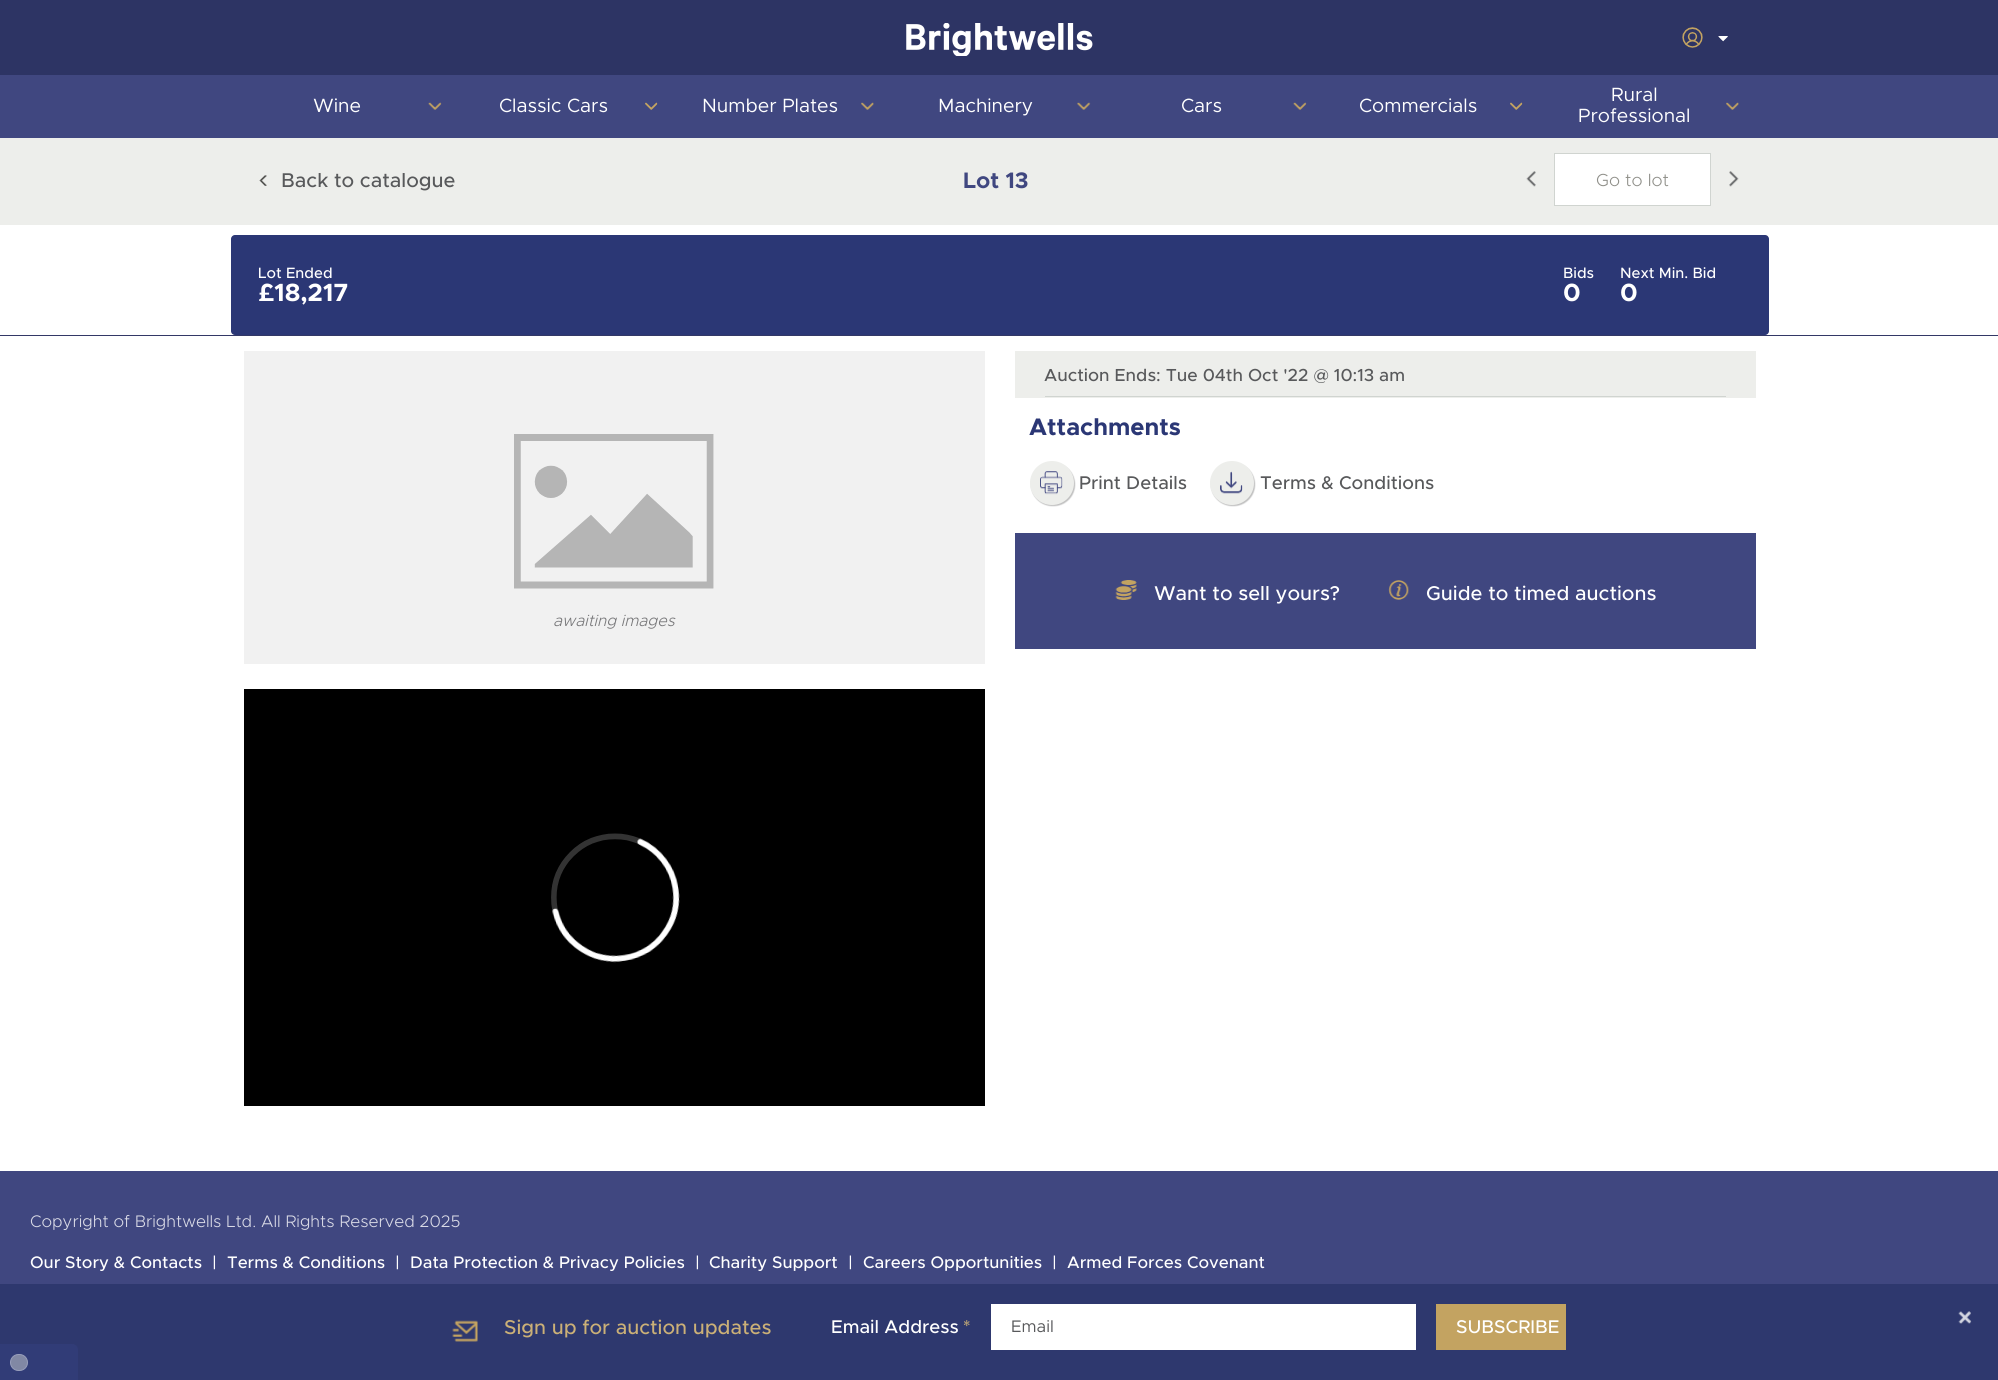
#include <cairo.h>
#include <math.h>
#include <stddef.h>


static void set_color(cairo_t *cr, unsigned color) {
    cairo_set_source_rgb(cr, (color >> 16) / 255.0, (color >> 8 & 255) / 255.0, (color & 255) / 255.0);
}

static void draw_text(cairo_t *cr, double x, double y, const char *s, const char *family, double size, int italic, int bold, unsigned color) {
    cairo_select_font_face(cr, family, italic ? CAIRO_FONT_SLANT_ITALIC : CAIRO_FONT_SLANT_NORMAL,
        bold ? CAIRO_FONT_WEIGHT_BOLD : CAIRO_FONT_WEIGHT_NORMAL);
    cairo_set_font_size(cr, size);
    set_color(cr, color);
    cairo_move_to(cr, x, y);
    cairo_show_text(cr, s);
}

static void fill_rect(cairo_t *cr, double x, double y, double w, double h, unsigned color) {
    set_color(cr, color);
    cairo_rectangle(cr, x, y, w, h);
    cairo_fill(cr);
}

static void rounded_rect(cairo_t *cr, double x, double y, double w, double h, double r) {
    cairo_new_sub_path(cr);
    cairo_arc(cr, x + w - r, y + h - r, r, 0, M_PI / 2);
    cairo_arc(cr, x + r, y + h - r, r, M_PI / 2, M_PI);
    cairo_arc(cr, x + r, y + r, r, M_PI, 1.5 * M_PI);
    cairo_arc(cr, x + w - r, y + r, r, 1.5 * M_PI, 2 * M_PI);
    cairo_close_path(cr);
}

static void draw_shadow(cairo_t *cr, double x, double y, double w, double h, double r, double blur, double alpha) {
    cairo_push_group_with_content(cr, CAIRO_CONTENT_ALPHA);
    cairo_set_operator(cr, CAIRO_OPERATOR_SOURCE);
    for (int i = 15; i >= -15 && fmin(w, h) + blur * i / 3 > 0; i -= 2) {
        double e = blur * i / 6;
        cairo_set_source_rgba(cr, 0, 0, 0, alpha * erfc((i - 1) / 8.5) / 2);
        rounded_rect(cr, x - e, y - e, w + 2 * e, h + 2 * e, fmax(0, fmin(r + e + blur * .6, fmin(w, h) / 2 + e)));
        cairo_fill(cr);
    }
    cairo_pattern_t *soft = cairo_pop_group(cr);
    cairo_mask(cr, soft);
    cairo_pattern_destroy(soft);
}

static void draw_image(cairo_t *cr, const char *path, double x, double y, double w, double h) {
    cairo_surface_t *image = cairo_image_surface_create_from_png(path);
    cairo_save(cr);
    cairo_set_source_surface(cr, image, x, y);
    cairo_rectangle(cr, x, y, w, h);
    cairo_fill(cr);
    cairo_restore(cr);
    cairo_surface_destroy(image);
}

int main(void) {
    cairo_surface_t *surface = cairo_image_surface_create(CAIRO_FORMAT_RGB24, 1998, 1380);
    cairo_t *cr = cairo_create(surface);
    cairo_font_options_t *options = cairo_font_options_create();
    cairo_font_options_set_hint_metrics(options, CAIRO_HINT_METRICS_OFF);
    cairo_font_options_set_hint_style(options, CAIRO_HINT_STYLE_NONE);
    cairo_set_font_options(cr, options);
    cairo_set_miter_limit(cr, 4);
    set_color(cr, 0xFFFFFF);
    cairo_paint(cr);
    fill_rect(cr, 0, 75, 1998, 63, 0x404780);
    fill_rect(cr, 0, 335, 1998, 1, 0x333866);
    fill_rect(cr, 0, 0, 1998, 75, 0x2D3464);
    draw_image(cr, "assets/img1.png", 906, 23, 187, 33);
    draw_image(cr, "assets/img2.png", 1682, 27, 21, 21);
    draw_image(cr, "assets/img3.png", 1718, 36, 10, 6);
    draw_text(cr, 313, 112, "Wine", "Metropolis", 19.25, 0, 0, 0xFFFFFF);
    draw_image(cr, "assets/img4.png", 428, 102, 14, 8);
    draw_text(cr, 499, 112, "Classic Cars", "Metropolis", 19.25, 0, 0, 0xFFFFFF);
    draw_image(cr, "assets/img5.png", 645, 102, 13, 8);
    draw_text(cr, 702, 112, "Number Plates", "Metropolis", 19.25, 0, 0, 0xFFFFFF);
    draw_image(cr, "assets/img6.png", 861, 102, 13, 8);
    draw_text(cr, 938, 112, "Machinery", "Metropolis", 19.25, 0, 0, 0xFFFFFF);
    draw_image(cr, "assets/img7.png", 1077, 102, 14, 8);
    draw_text(cr, 1181, 112, "Cars", "Metropolis", 19.25, 0, 0, 0xFFFFFF);
    draw_image(cr, "assets/img4.png", 1293, 102, 14, 8);
    draw_text(cr, 1359, 112, "Commercials", "Metropolis", 19.25, 0, 0, 0xFFFFFF);
    draw_image(cr, "assets/img5.png", 1510, 102, 13, 8);
    draw_text(cr, 1611, 101, "Rural", "Metropolis", 19.25, 0, 0, 0xFFFFFF);
    draw_text(cr, 1578, 122, "Professional", "Metropolis", 19.25, 0, 0, 0xFFFFFF);
    draw_image(cr, "assets/img6.png", 1726, 102, 13, 8);
    fill_rect(cr, 0, 138, 1998, 87, 0xEDEEEB);
    draw_image(cr, "assets/img8.png", 259, 175, 8, 11);
    draw_text(cr, 281, 187, "Back to catalogue", "Metropolis Medium", 20, 0, 0, 0x58595B);
    draw_text(cr, 963, 188, "Lot 13", "Metropolis", 22.5, 0, 1, 0x404780);
    draw_image(cr, "assets/img9.png", 1526, 171, 10, 16);
    set_color(cr, 0xFFFFFF);
    cairo_rectangle(cr, 1554.5, 153.5, 156, 52);
    cairo_fill_preserve(cr);
    set_color(cr, 0xD0D4D0);
    cairo_set_line_width(cr, 1);
    cairo_stroke(cr);
    draw_text(cr, 1596, 186, "Go to lot", "Metropolis Light", 17.5, 0, 0, 0x8F8F89);
    draw_image(cr, "assets/img10.png", 1729, 171, 10, 16);
    set_color(cr, 0x2B3775);
    rounded_rect(cr, 231, 235, 1538, 100, 4);
    cairo_fill(cr);
    draw_text(cr, 258, 278, "Lot Ended", "Metropolis Medium", 15, 0, 0, 0xFFFFFF);
    draw_text(cr, 258, 301, "£18,217", "Metropolis", 25, 0, 1, 0xFFFFFF);
    draw_text(cr, 1563, 278, "Bids", "Metropolis Medium", 15, 0, 0, 0xFFFFFF);
    draw_text(cr, 1563, 301, "0", "Metropolis", 25, 0, 1, 0xFFFFFF);
    draw_text(cr, 1620, 278, "Next Min. Bid", "Metropolis Medium", 15, 0, 0, 0xFFFFFF);
    draw_text(cr, 1620, 301, "0", "Metropolis", 25, 0, 1, 0xFFFFFF);
    fill_rect(cr, 1015, 351, 741, 47, 0xEDEEEB);
    fill_rect(cr, 1045, 396, 681, 1, 0xD0D4D0);
    draw_text(cr, 1044, 381, "Auction Ends: Tue 04th Oct '22 @ 10:13 am", "Metropolis Medium", 17.5, 0, 0, 0x58595B);
    draw_text(cr, 1029, 435, "Attachments", "Metropolis", 24, 0, 1, 0x2B3775);
    set_color(cr, 0x000000);
    draw_shadow(cr, 1031, 463, 44, 43, 21.5, 0.5, 0.25);
    set_color(cr, 0xEDEEEB);
    cairo_arc(cr, 1052, 483, 22, 0, 2 * M_PI);
    cairo_fill(cr);
    draw_image(cr, "assets/img11.png", 1040, 471, 23, 24);
    draw_text(cr, 1079, 489, "Print Details", "Metropolis Medium", 18.5, 0, 0, 0x58595B);
    set_color(cr, 0x000000);
    draw_shadow(cr, 1211, 463, 44, 43, 21.5, 0.5, 0.25);
    set_color(cr, 0xEDEEEB);
    cairo_arc(cr, 1232, 483, 22, 0, 2 * M_PI);
    cairo_fill(cr);
    draw_image(cr, "assets/img12.png", 1220, 471, 23, 23);
    draw_text(cr, 1260, 489, "Terms & Conditions", "Metropolis Medium", 18.5, 0, 0, 0x58595B);
    fill_rect(cr, 1015, 533, 741, 116, 0x404780);
    draw_image(cr, "assets/img13.png", 1115, 580, 22, 20);
    draw_text(cr, 1154, 600, "Want to sell yours?", "Metropolis Medium", 20, 0, 0, 0xFFFFFF);
    draw_image(cr, "assets/img14.png", 1388, 580, 21, 20);
    draw_text(cr, 1426, 600, "Guide to timed auctions", "Metropolis Medium", 20, 0, 0, 0xFFFFFF);
    fill_rect(cr, 244, 351, 741, 313, 0xF1F1F1);
    draw_image(cr, "assets/img15.png", 514, 434, 200, 155);
    draw_text(cr, 553, 626, "awaiting images", "Metropolis Light", 16, 1, 0, 0x777779);
    draw_image(cr, "assets/img16.png", 244, 689, 741, 417);
    fill_rect(cr, 0, 1284, 1998, 96, 0x2E386E);
    draw_image(cr, "assets/img17.png", 1958, 1311, 14, 13);
    draw_image(cr, "assets/img18.png", 452, 1320, 26, 22);
    draw_text(cr, 504, 1334, "Sign up for auction updates", "Metropolis Medium", 20, 0, 0, 0xCBB077);
    draw_text(cr, 831, 1333, "Email Address", "Metropolis Medium", 18.5, 0, 0, 0xFFFFFF);
    draw_text(cr, 963, 1333, "*", "Metropolis Medium", 18.5, 0, 0, 0xCBB077);
    fill_rect(cr, 991, 1304, 425, 46, 0xFFFFFF);
    draw_text(cr, 1011, 1332, "Email", "Metropolis", 16.8, 0, 0, 0x58595B);
    fill_rect(cr, 1436, 1304, 130, 46, 0xC3A361);
    draw_text(cr, 1456, 1333, "SUBSCRIBE", "Metropolis Medium", 18.5, 0, 0, 0xFFFFFF);
    fill_rect(cr, 0, 1171, 1998, 113, 0x404780);
    draw_text(cr, 30, 1227, "Copyright of Brightwells Ltd. All Rights Reserved 2025", "Metropolis Light", 16.8, 0, 0, 0xD9DAE6);
    draw_text(cr, 30, 1268, "Our Story & Contacts", "Metropolis Medium", 16.8, 0, 0, 0xFFFFFF);
    draw_text(cr, 212, 1268, "|", "Metropolis Medium", 16.8, 0, 0, 0xFFFFFF);
    draw_text(cr, 227, 1268, "Terms & Conditions", "Metropolis Medium", 16.8, 0, 0, 0xFFFFFF);
    draw_text(cr, 395, 1268, "|", "Metropolis Medium", 16.8, 0, 0, 0xFFFFFF);
    draw_text(cr, 410, 1268, "Data Protection & Privacy Policies", "Metropolis Medium", 16.8, 0, 0, 0xFFFFFF);
    draw_text(cr, 695, 1268, "|", "Metropolis Medium", 16.8, 0, 0, 0xFFFFFF);
    draw_text(cr, 709, 1268, "Charity Support", "Metropolis Medium", 16.8, 0, 0, 0xFFFFFF);
    draw_text(cr, 848, 1268, "|", "Metropolis Medium", 16.8, 0, 0, 0xFFFFFF);
    draw_text(cr, 863, 1268, "Careers Opportunities", "Metropolis Medium", 16.8, 0, 0, 0xFFFFFF);
    draw_text(cr, 1052, 1268, "|", "Metropolis Medium", 16.8, 0, 0, 0xFFFFFF);
    draw_text(cr, 1067, 1268, "Armed Forces Covenant", "Metropolis Medium", 16.8, 0, 0, 0xFFFFFF);
    set_color(cr, 0x313C77);
    cairo_new_path(cr);
    cairo_move_to(cr, 0, 1344);
    cairo_line_to(cr, 72, 1344);
    cairo_curve_to(cr, 75.5, 1344, 78, 1346.5, 78, 1350);
    cairo_line_to(cr, 78, 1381);
    cairo_line_to(cr, 0, 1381);
    cairo_close_path(cr);
    cairo_fill(cr);
    set_color(cr, 0x8188A4);
    rounded_rect(cr, 10.5, 1354.5, 17, 16, 8);
    cairo_fill_preserve(cr);
    set_color(cr, 0x989EBB);
    cairo_stroke(cr);
    cairo_surface_write_to_png(surface, "output.png");
    cairo_font_options_destroy(options);
    cairo_destroy(cr);
    cairo_surface_destroy(surface);
    return 0;
}
